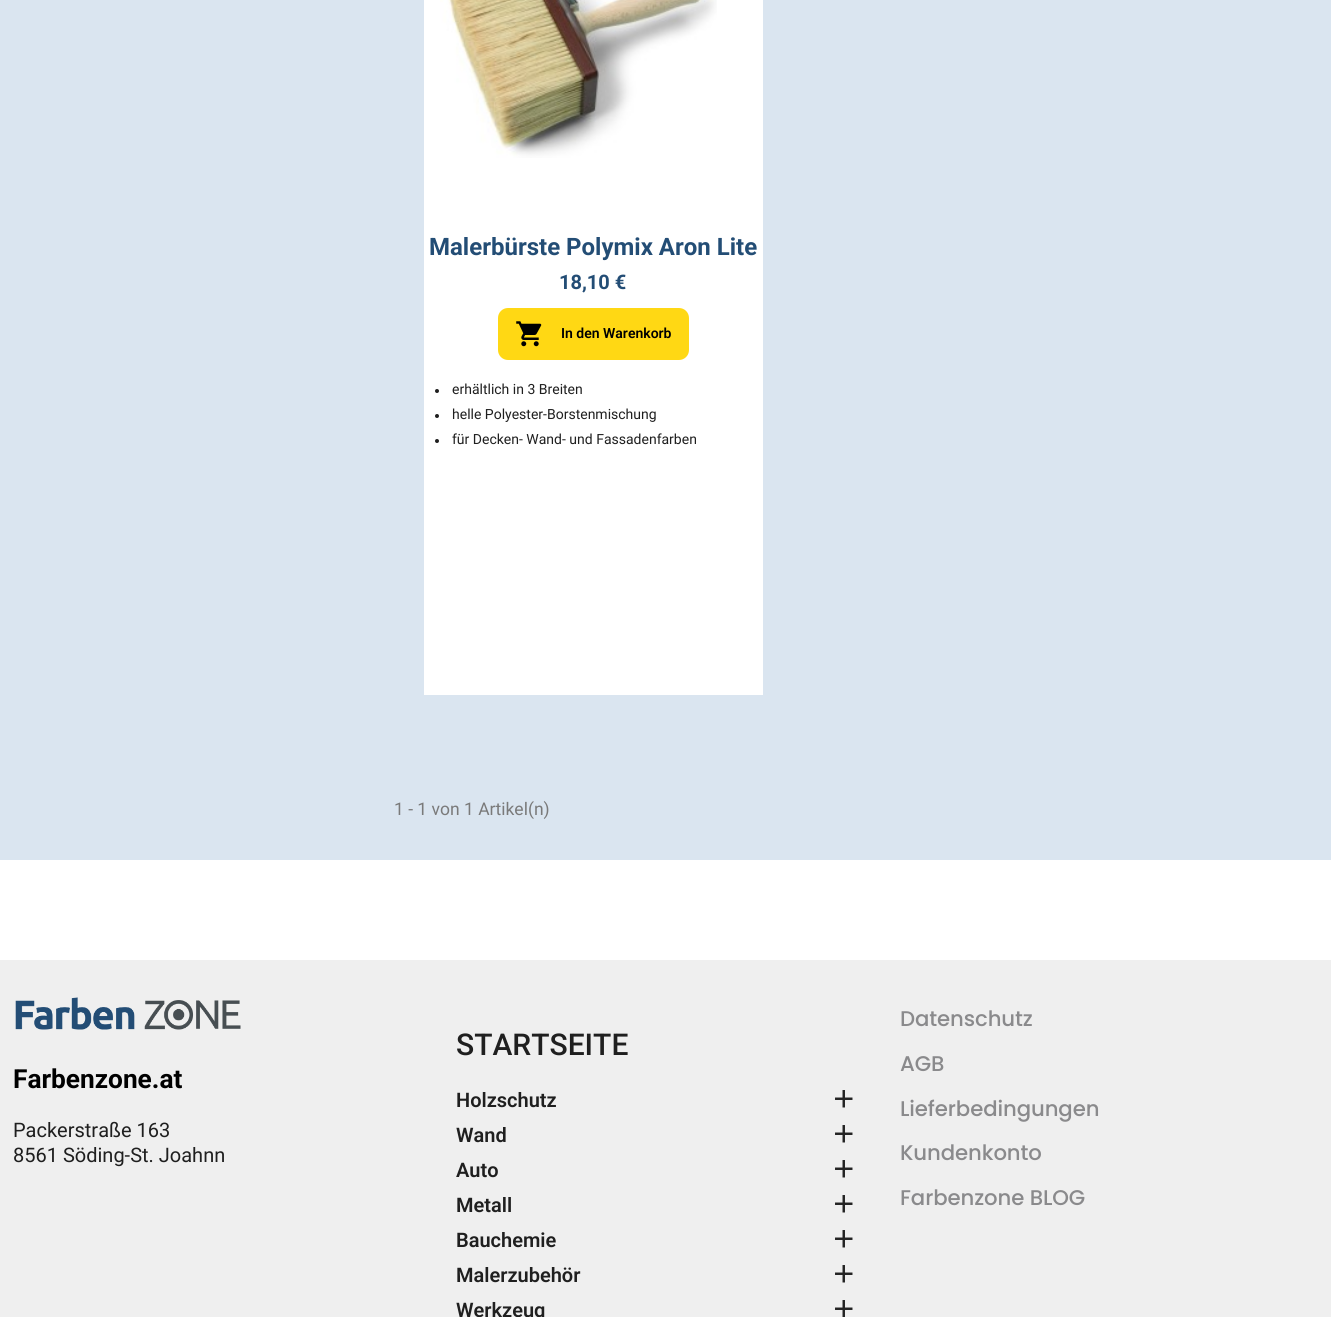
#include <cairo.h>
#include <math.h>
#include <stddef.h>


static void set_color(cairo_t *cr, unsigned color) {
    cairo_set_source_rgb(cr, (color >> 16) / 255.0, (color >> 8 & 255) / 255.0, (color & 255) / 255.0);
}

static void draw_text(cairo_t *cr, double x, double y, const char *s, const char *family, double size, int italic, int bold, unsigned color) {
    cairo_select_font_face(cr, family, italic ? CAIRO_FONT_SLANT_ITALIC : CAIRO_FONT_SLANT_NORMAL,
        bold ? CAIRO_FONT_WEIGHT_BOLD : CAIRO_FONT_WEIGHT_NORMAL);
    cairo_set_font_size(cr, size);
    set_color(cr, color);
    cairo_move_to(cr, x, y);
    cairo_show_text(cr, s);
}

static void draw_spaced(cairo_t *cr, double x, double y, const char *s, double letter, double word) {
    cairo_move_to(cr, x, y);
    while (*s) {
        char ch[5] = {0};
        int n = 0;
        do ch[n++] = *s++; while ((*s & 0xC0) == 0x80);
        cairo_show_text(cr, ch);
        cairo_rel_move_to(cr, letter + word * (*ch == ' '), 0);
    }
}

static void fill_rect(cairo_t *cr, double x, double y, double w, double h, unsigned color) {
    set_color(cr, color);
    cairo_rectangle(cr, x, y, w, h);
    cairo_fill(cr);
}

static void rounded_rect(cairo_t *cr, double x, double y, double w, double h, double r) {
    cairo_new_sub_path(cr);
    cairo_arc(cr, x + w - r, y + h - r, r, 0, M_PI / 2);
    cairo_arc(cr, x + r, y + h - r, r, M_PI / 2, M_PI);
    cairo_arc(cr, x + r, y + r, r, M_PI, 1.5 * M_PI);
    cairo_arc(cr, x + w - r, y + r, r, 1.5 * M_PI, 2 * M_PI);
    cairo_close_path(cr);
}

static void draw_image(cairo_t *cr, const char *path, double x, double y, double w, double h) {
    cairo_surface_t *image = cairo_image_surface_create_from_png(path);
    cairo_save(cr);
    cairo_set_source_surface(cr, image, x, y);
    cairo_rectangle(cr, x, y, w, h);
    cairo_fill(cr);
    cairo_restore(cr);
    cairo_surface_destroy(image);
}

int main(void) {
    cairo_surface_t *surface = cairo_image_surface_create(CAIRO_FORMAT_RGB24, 1331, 1317);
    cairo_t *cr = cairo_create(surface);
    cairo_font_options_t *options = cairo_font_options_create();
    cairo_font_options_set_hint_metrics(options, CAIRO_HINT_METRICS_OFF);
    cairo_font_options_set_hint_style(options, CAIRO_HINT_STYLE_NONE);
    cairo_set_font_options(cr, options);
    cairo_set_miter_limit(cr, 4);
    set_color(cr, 0xFFFFFF);
    cairo_paint(cr);
    fill_rect(cr, 0, 0, 1331, 860, 0xDAE5F0);
    fill_rect(cr, 424, 0, 339, 695, 0xFFFFFF);
    draw_image(cr, "assets/img1.png", 440, 0, 277, 158);
    draw_text(cr, 429, 255, "Malerbürste Polymix Aron Lite", "Roboto", 24, 0, 1, 0x234D75);
    draw_text(cr, 559, 289, "18,10 €", "Roboto", 20, 0, 1, 0x234D75);
    set_color(cr, 0xFFD814);
    rounded_rect(cr, 498, 308, 191, 52, 10);
    cairo_fill(cr);
    draw_image(cr, "assets/img2.png", 516, 321, 26, 26);
    draw_text(cr, 561, 338, "In den Warenkorb", "Roboto SemiBold", 14, 0, 0, 0x000000);
    set_color(cr, 0x1F1F1F);
    cairo_new_path(cr);
    cairo_arc(cr, 437, 391, 2, 0, 2 * M_PI);
    cairo_fill(cr);
    draw_text(cr, 452, 394, "erhältlich in 3 Breiten", "Roboto", 14, 0, 0, 0x1F1F1F);
    cairo_new_path(cr);
    cairo_arc(cr, 437, 416, 2, 0, 2 * M_PI);
    cairo_fill(cr);
    draw_text(cr, 452, 419, "helle Polyester-Borstenmischung", "Roboto", 14, 0, 0, 0x1F1F1F);
    cairo_new_path(cr);
    cairo_arc(cr, 437, 441, 2, 0, 2 * M_PI);
    cairo_fill(cr);
    draw_text(cr, 452, 444, "für Decken- Wand- und Fassadenfarben", "Roboto", 14, 0, 0, 0x1F1F1F);
    draw_text(cr, 394, 815, "1 - 1 von 1 Artikel(n)", "Roboto", 17.5, 0, 0, 0x7A7A7A);
    fill_rect(cr, 0, 960, 1331, 357, 0xEFEFEF);
    draw_image(cr, "assets/img3.png", 15, 997, 226, 33);
    draw_text(cr, 13, 1088, "Farbenzone.at", "Roboto", 26.25, 0, 1, 0x000000);
    draw_text(cr, 13, 1137, "Packerstraße 163", "Roboto", 20, 0, 0, 0x1F1F1F);
    draw_text(cr, 13, 1162, "8561 Söding-St. Joahnn", "Roboto", 20, 0, 0, 0x1F1F1F);
    draw_text(cr, 456, 1055, "STARTSEITE", "Roboto Medium", 30, 0, 0, 0x1F1F1F);
    draw_text(cr, 456, 1107, "Holzschutz", "Roboto SemiBold", 20, 0, 0, 0x1F1F1F);
    draw_image(cr, "assets/img4.png", 835, 1090, 18, 18);
    draw_text(cr, 456, 1142, "Wand", "Roboto SemiBold", 20, 0, 0, 0x1F1F1F);
    draw_image(cr, "assets/img4.png", 835, 1125, 18, 18);
    draw_text(cr, 456, 1177, "Auto", "Roboto SemiBold", 20, 0, 0, 0x1F1F1F);
    draw_image(cr, "assets/img4.png", 835, 1160, 18, 18);
    draw_text(cr, 456, 1212, "Metall", "Roboto SemiBold", 20, 0, 0, 0x1F1F1F);
    draw_image(cr, "assets/img4.png", 835, 1195, 18, 18);
    draw_text(cr, 456, 1247, "Bauchemie", "Roboto SemiBold", 20, 0, 0, 0x1F1F1F);
    draw_image(cr, "assets/img4.png", 835, 1230, 18, 18);
    draw_text(cr, 456, 1282, "Malerzubehör", "Roboto SemiBold", 20, 0, 0, 0x1F1F1F);
    draw_image(cr, "assets/img4.png", 835, 1265, 18, 18);
    draw_text(cr, 456, 1317, "Werkzeug", "Roboto SemiBold", 20, 0, 0, 0x1F1F1F);
    draw_image(cr, "assets/img5.png", 835, 1300, 18, 17);
    cairo_select_font_face(cr, "Poppins Medium", CAIRO_FONT_SLANT_NORMAL, CAIRO_FONT_WEIGHT_NORMAL);
    cairo_set_font_size(cr, 21.25);
    set_color(cr, 0x8A8A8C);
    draw_spaced(cr, 900, 1026, "Datenschutz", -0.1, 0);
    draw_spaced(cr, 900, 1071, "AGB", -0.1, 0);
    draw_spaced(cr, 900, 1116, "Lieferbedingungen", -0.1, 0);
    draw_spaced(cr, 900, 1160, "Kundenkonto", -0.1, 0);
    draw_spaced(cr, 900, 1205, "Farbenzone BLOG", -0.1, 0);
    cairo_surface_write_to_png(surface, "output.png");
    cairo_font_options_destroy(options);
    cairo_destroy(cr);
    cairo_surface_destroy(surface);
    return 0;
}
